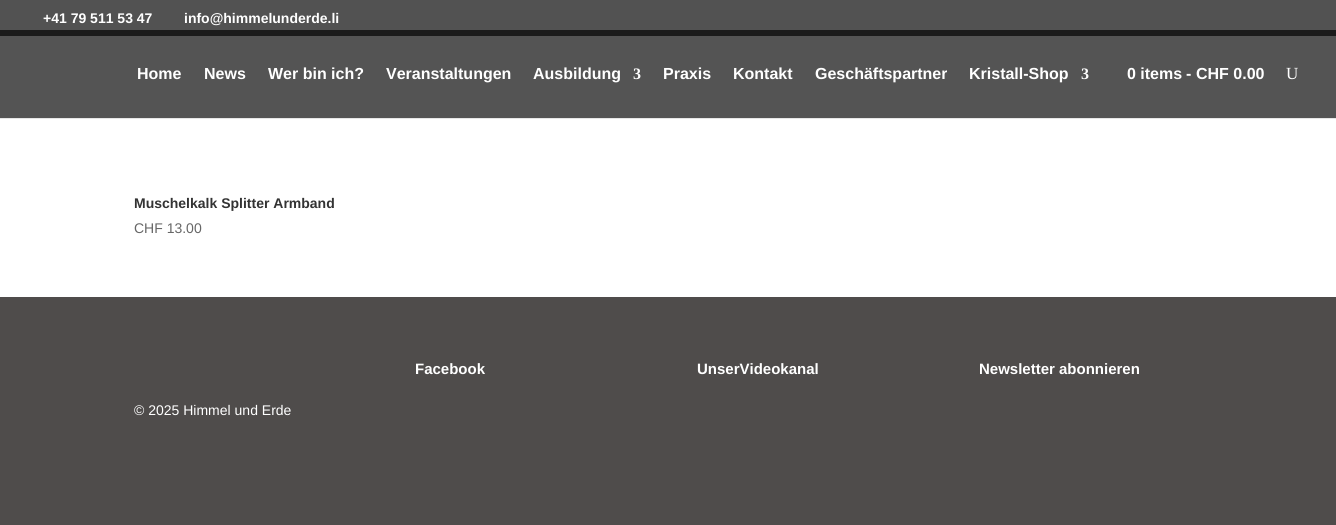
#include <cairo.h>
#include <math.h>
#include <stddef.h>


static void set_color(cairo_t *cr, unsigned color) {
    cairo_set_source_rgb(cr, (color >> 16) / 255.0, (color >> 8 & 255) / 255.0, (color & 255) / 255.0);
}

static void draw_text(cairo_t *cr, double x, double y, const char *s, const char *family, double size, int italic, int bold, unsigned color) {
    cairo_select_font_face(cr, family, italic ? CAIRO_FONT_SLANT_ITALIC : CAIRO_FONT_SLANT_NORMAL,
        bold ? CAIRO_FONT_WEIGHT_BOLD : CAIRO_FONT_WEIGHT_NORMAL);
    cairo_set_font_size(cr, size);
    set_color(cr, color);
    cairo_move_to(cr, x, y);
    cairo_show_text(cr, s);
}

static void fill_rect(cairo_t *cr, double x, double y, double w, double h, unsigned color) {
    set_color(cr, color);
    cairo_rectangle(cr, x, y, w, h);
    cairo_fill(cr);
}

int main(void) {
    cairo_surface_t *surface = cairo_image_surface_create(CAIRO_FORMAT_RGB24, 1336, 525);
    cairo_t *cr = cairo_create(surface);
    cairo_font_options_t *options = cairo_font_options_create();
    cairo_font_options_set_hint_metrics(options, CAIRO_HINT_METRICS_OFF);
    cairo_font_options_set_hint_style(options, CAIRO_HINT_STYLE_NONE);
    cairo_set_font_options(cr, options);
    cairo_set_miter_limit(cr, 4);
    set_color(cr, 0xFFFFFF);
    cairo_paint(cr);
    fill_rect(cr, 0, 0, 1336, 30, 0x525252);
    draw_text(cr, 43, 23, "+41 79 511 53 47", "Liberation Sans", 14, 0, 1, 0xFFFFFF);
    draw_text(cr, 184, 23, "info@himmelunderde.li", "Liberation Sans", 14, 0, 1, 0xFFFFFF);
    fill_rect(cr, 0, 118, 1336, 1, 0xE6E6E6);
    fill_rect(cr, 0, 36, 1336, 82, 0x545454);
    fill_rect(cr, 0, 30, 1336, 6, 0x1B1B1B);
    draw_text(cr, 137, 79, "Home", "Liberation Sans", 16, 0, 1, 0xFFFFFF);
    draw_text(cr, 204, 79, "News", "Liberation Sans", 16, 0, 1, 0xFFFFFF);
    draw_text(cr, 268, 79, "Wer bin ich?", "Liberation Sans", 16, 0, 1, 0xFFFFFF);
    draw_text(cr, 386, 79, "Veranstaltungen", "Liberation Sans", 16, 0, 1, 0xFFFFFF);
    draw_text(cr, 533, 79, "Ausbildung", "Liberation Sans", 16, 0, 1, 0xFFFFFF);
    draw_text(cr, 633, 79, "3", "Liberation Serif", 16, 0, 1, 0xFFFFFF);
    draw_text(cr, 663, 79, "Praxis", "Liberation Sans", 16, 0, 1, 0xFFFFFF);
    draw_text(cr, 733, 79, "Kontakt", "Liberation Sans", 16, 0, 1, 0xFFFFFF);
    draw_text(cr, 815, 79, "Geschäftspartner", "Liberation Sans", 16, 0, 1, 0xFFFFFF);
    draw_text(cr, 969, 79, "Kristall-Shop", "Liberation Sans", 16, 0, 1, 0xFFFFFF);
    draw_text(cr, 1081, 79, "3", "Liberation Serif", 16, 0, 1, 0xFFFFFF);
    draw_text(cr, 1127, 79, "0 items", "Liberation Sans", 16, 0, 1, 0xFFFFFF);
    draw_text(cr, 1186, 79, "-", "Liberation Sans", 16, 0, 1, 0xFFFFFF);
    draw_text(cr, 1196, 79, "CHF 0.00", "Liberation Sans", 16, 0, 1, 0xFFFFFF);
    draw_text(cr, 1286, 79, "U", "Liberation Serif", 17, 0, 0, 0xFFFFFF);
    draw_text(cr, 134, 208, "Muschelkalk Splitter Armband", "Liberation Sans", 14, 0, 1, 0x333333);
    draw_text(cr, 134, 233, "CHF 13.00", "Liberation Sans", 14, 0, 0, 0x666666);
    fill_rect(cr, 0, 297, 1336, 228, 0x4F4C4B);
    draw_text(cr, 415, 374, "Facebook", "Liberation Sans", 15, 0, 1, 0xFFFFFF);
    draw_text(cr, 697, 374, "UnserVideokanal", "Liberation Sans", 15, 0, 1, 0xFFFFFF);
    draw_text(cr, 979, 374, "Newsletter abonnieren", "Liberation Sans", 15, 0, 1, 0xFFFFFF);
    draw_text(cr, 134, 415, "© 2025 Himmel und Erde", "Liberation Sans", 14, 0, 0, 0xFFFFFF);
    cairo_surface_write_to_png(surface, "output.png");
    cairo_font_options_destroy(options);
    cairo_destroy(cr);
    cairo_surface_destroy(surface);
    return 0;
}
